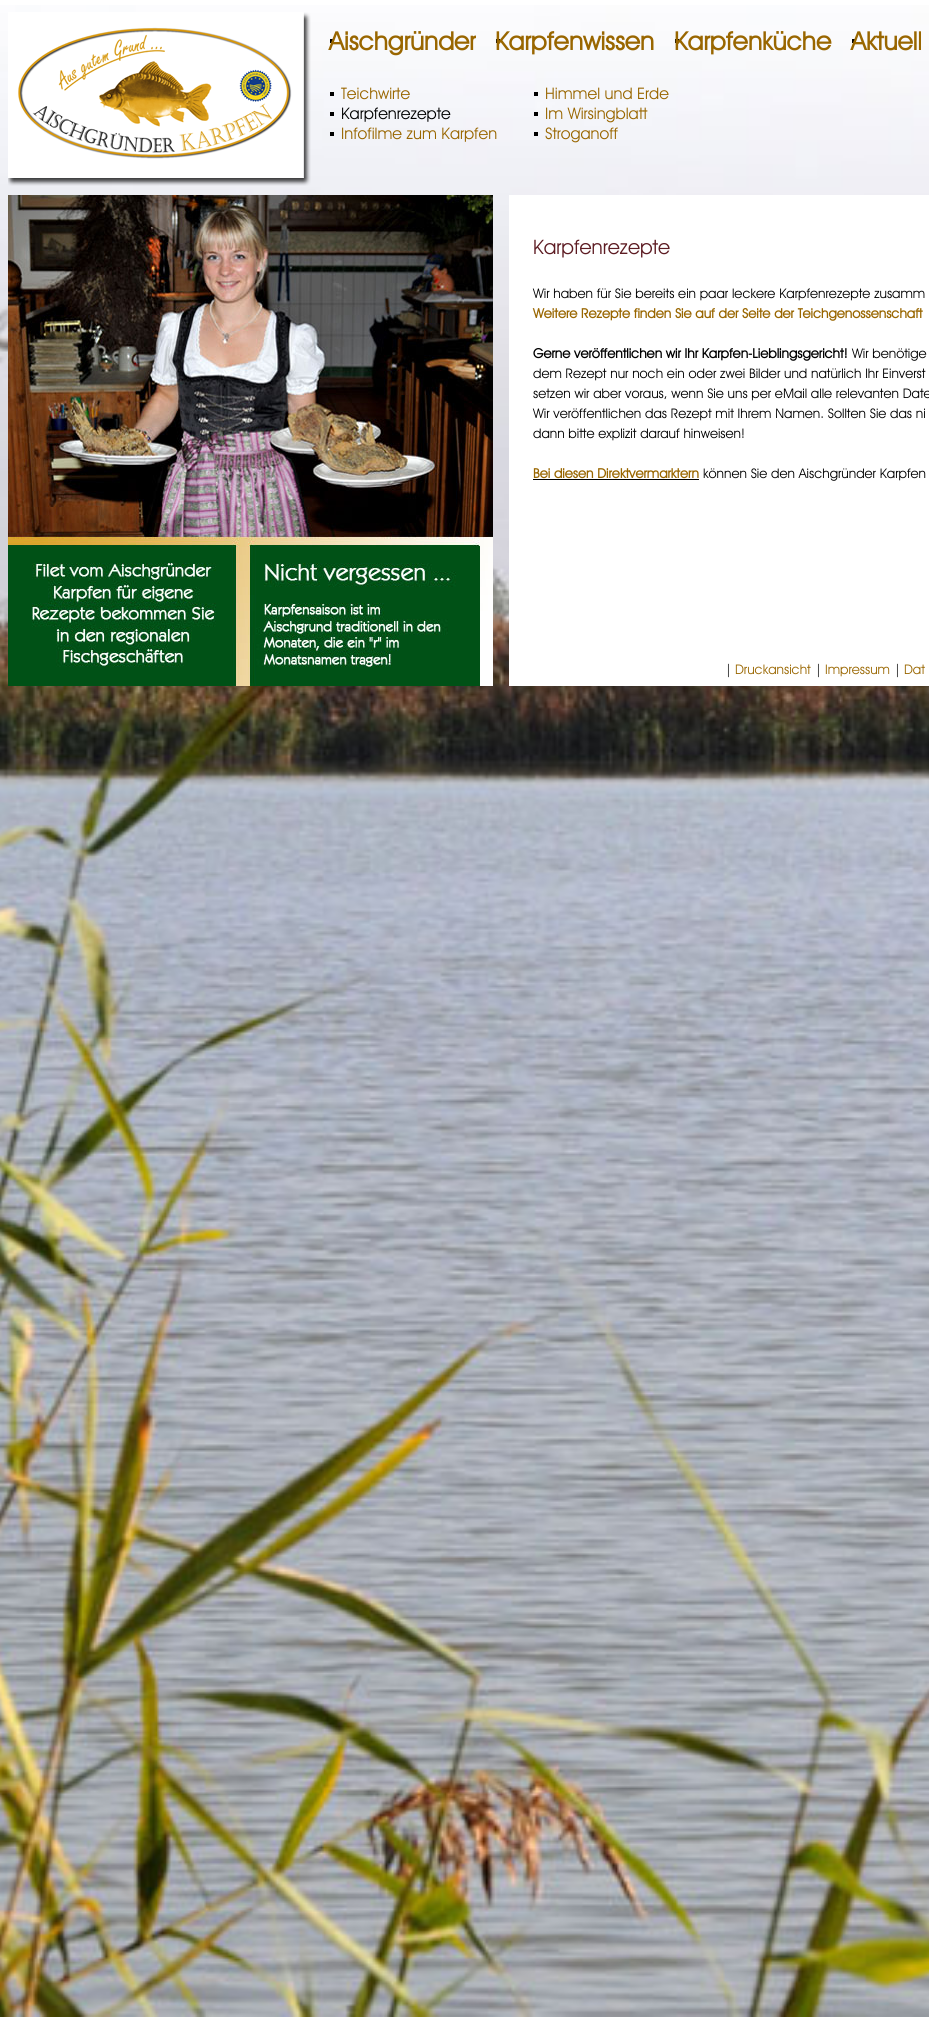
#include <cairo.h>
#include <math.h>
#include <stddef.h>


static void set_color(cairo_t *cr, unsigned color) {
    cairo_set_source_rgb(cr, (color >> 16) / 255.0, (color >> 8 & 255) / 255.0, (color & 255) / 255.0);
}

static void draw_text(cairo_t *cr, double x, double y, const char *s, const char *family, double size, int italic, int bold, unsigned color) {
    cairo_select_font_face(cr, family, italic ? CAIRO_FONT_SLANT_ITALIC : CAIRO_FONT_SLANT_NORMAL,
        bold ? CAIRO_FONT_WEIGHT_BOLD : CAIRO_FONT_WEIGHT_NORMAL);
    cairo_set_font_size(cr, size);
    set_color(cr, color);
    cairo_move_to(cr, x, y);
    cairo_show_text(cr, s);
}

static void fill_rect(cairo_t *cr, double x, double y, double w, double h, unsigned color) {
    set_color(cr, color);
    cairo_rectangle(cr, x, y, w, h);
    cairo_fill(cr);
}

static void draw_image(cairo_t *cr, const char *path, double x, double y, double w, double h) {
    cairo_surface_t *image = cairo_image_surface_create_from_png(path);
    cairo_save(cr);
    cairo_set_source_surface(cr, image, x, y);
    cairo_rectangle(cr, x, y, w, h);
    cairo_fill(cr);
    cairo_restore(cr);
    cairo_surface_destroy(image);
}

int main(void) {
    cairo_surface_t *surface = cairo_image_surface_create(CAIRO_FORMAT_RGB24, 929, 2017);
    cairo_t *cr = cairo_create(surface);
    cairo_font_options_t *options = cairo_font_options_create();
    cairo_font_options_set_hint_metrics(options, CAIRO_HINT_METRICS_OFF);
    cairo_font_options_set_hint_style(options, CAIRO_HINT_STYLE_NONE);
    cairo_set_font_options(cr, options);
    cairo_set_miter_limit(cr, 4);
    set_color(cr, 0xFFFFFF);
    cairo_paint(cr);
    draw_image(cr, "assets/img1.png", 0, 5, 929, 2012);
    draw_image(cr, "assets/img2.png", 8, 12, 303, 174);
    fill_rect(cr, 330, 39, 4, 4, 0x000000);
    draw_text(cr, 329, 50, "Aischgründer", "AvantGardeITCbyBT", 25.25, 0, 1, 0x996600);
    fill_rect(cr, 496, 39, 4, 4, 0x000000);
    draw_text(cr, 495, 50, "Karpfenwissen", "AvantGardeITCbyBT", 25.25, 0, 1, 0x996600);
    fill_rect(cr, 675, 39, 4, 4, 0x000000);
    draw_text(cr, 674, 50, "Karpfenküche", "AvantGardeITCbyBT", 25.25, 0, 1, 0x996600);
    fill_rect(cr, 852, 39, 4, 4, 0x000000);
    draw_text(cr, 851, 50, "Aktuell", "AvantGardeITCbyBT", 25.25, 0, 1, 0x996600);
    fill_rect(cr, 330, 92, 4, 4, 0x000000);
    draw_text(cr, 341, 99, "Teichwirte", "AvantGardeITCbyBT", 16, 0, 0, 0x996600);
    fill_rect(cr, 330, 112, 4, 4, 0x000000);
    draw_text(cr, 341, 119, "Karpfenrezepte", "AvantGardeITCbyBT", 16, 0, 0, 0x000000);
    fill_rect(cr, 330, 132, 4, 4, 0x000000);
    draw_text(cr, 341, 139, "Infofilme zum Karpfen", "AvantGardeITCbyBT", 16, 0, 0, 0x996600);
    fill_rect(cr, 534, 92, 4, 4, 0x000000);
    draw_text(cr, 545, 99, "Himmel und Erde", "AvantGardeITCbyBT", 16, 0, 0, 0x996600);
    fill_rect(cr, 534, 112, 4, 4, 0x000000);
    draw_text(cr, 545, 119, "Im Wirsingblatt", "AvantGardeITCbyBT", 16, 0, 0, 0x996600);
    fill_rect(cr, 534, 132, 4, 4, 0x000000);
    draw_text(cr, 545, 139, "Stroganoff", "AvantGardeITCbyBT", 16, 0, 0, 0x996600);
    draw_image(cr, "assets/img3.png", 8, 195, 485, 491);
    fill_rect(cr, 509, 195, 420, 25, 0xFFFFFF);
    fill_rect(cr, 509, 220, 420, 466, 0xFFFFFF);
    draw_text(cr, 533, 254, "Karpfenrezepte", "AvantGardeITCbyBT", 20, 0, 0, 0x5D1C23);
    draw_text(cr, 533, 298, "Wir haben für Sie bereits ein paar leckere Karpfenrezepte zusamm", "AvantGardeITCbyBT", 13.3, 0, 0, 0x000000);
    draw_text(cr, 533, 318, "Weitere Rezepte finden Sie auf der Seite der Teichgenossenschaft", "AvantGardeITCbyBT", 13.3, 0, 1, 0x996600);
    draw_text(cr, 533, 358, "Gerne veröffentlichen wir Ihr Karpfen-Lieblingsgericht!", "AvantGardeITCbyBT", 13.3, 0, 1, 0x000000);
    draw_text(cr, 852, 358, "Wir benötige", "AvantGardeITCbyBT", 13.3, 0, 0, 0x000000);
    draw_text(cr, 533, 378, "dem Rezept nur noch ein oder zwei Bilder und natürlich Ihr Einverst", "AvantGardeITCbyBT", 13.3, 0, 0, 0x000000);
    draw_text(cr, 533, 398, "setzen wir aber voraus, wenn Sie uns per eMail alle relevanten Date", "AvantGardeITCbyBT", 13.3, 0, 0, 0x000000);
    draw_text(cr, 533, 418, "Wir veröffentlichen das Rezept mit Ihrem Namen. Sollten Sie das ni", "AvantGardeITCbyBT", 13.3, 0, 0, 0x000000);
    draw_text(cr, 533, 438, "dann bitte explizit darauf hinweisen!", "AvantGardeITCbyBT", 13.3, 0, 0, 0x000000);
    draw_text(cr, 533, 478, "Bei diesen Direktvermarktern", "AvantGardeITCbyBT", 13.3, 0, 1, 0x996600);
    fill_rect(cr, 533, 479, 166, 1, 0x000000);
    draw_text(cr, 703, 478, "können Sie den Aischgründer Karpfen", "AvantGardeITCbyBT", 13.3, 0, 0, 0x000000);
    draw_text(cr, 725, 674, "|", "AvantGardeITCbyBT", 13.3, 0, 0, 0x000000);
    draw_text(cr, 735, 674, "Druckansicht", "AvantGardeITCbyBT", 13.3, 0, 0, 0x996600);
    draw_text(cr, 815, 674, "|", "AvantGardeITCbyBT", 13.3, 0, 0, 0x000000);
    draw_text(cr, 825, 674, "Impressum", "AvantGardeITCbyBT", 13.3, 0, 0, 0x996600);
    draw_text(cr, 894, 674, "|", "AvantGardeITCbyBT", 13.3, 0, 0, 0x000000);
    draw_text(cr, 904, 674, "Dat", "AvantGardeITCbyBT", 13.3, 0, 0, 0x996600);
    cairo_surface_write_to_png(surface, "output.png");
    cairo_font_options_destroy(options);
    cairo_destroy(cr);
    cairo_surface_destroy(surface);
    return 0;
}
